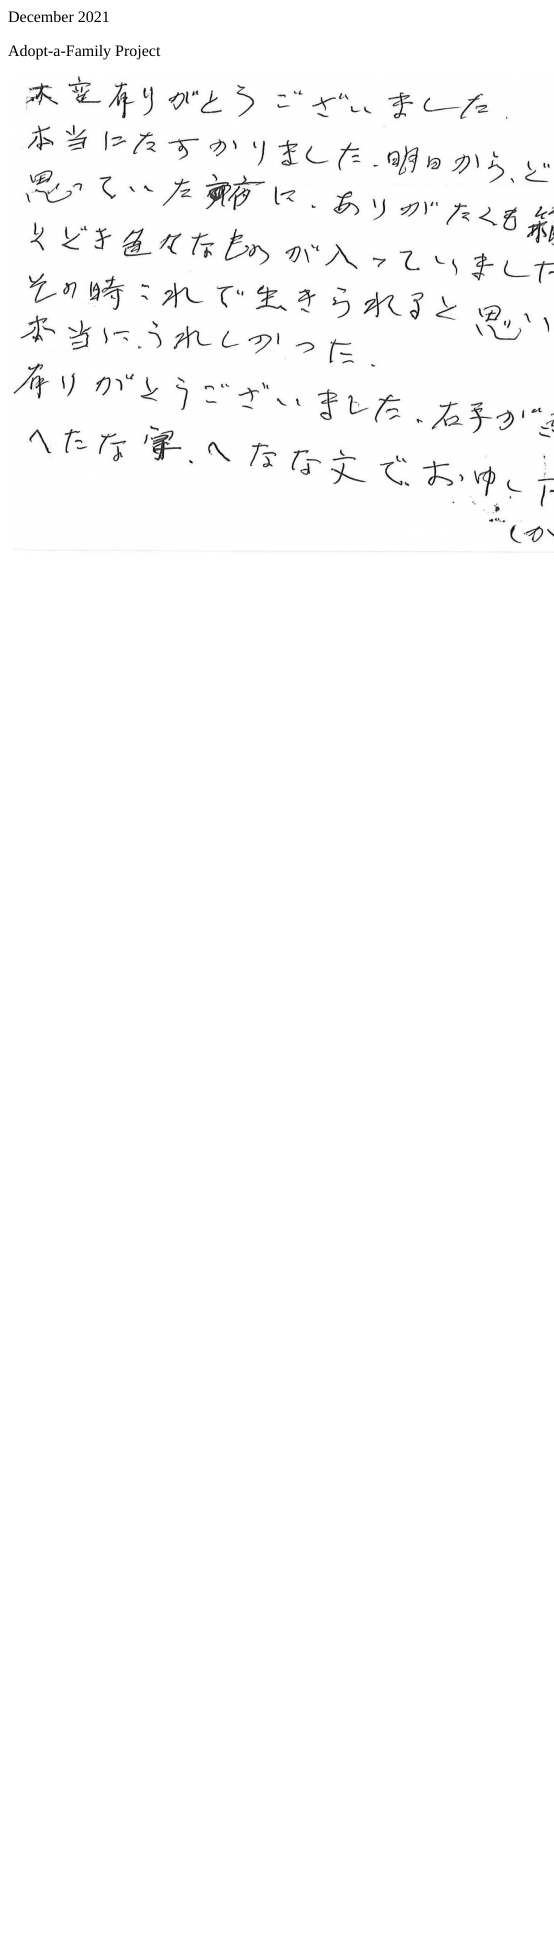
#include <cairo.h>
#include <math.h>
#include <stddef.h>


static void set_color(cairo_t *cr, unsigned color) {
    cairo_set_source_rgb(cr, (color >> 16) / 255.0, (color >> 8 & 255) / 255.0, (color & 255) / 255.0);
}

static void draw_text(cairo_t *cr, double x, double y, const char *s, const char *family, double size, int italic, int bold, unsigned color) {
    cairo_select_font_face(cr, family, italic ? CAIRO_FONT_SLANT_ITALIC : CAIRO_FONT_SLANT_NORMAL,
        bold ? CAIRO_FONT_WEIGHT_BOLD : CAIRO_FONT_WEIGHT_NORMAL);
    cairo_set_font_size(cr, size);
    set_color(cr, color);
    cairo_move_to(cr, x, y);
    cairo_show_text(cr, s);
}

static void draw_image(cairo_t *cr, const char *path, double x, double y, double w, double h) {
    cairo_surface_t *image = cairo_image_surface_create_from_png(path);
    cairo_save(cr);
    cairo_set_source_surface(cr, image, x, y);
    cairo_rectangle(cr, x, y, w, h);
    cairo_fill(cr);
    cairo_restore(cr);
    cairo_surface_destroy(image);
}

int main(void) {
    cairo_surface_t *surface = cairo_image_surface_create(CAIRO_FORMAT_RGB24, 554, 1940);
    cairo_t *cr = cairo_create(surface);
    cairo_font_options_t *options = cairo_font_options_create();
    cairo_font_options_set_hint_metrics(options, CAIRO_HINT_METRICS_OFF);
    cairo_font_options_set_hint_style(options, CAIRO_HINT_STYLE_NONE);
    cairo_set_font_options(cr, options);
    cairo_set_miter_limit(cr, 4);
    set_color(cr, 0xFFFFFF);
    cairo_paint(cr);
    draw_text(cr, 8, 22, "December 2021", "Liberation Serif", 16, 0, 0, 0x000000);
    draw_text(cr, 8, 56, "Adopt-a-Family Project", "Liberation Serif", 16, 0, 0, 0x000000);
    draw_image(cr, "assets/img1.png", 12, 76, 542, 478);
    cairo_surface_write_to_png(surface, "output.png");
    cairo_font_options_destroy(options);
    cairo_destroy(cr);
    cairo_surface_destroy(surface);
    return 0;
}
